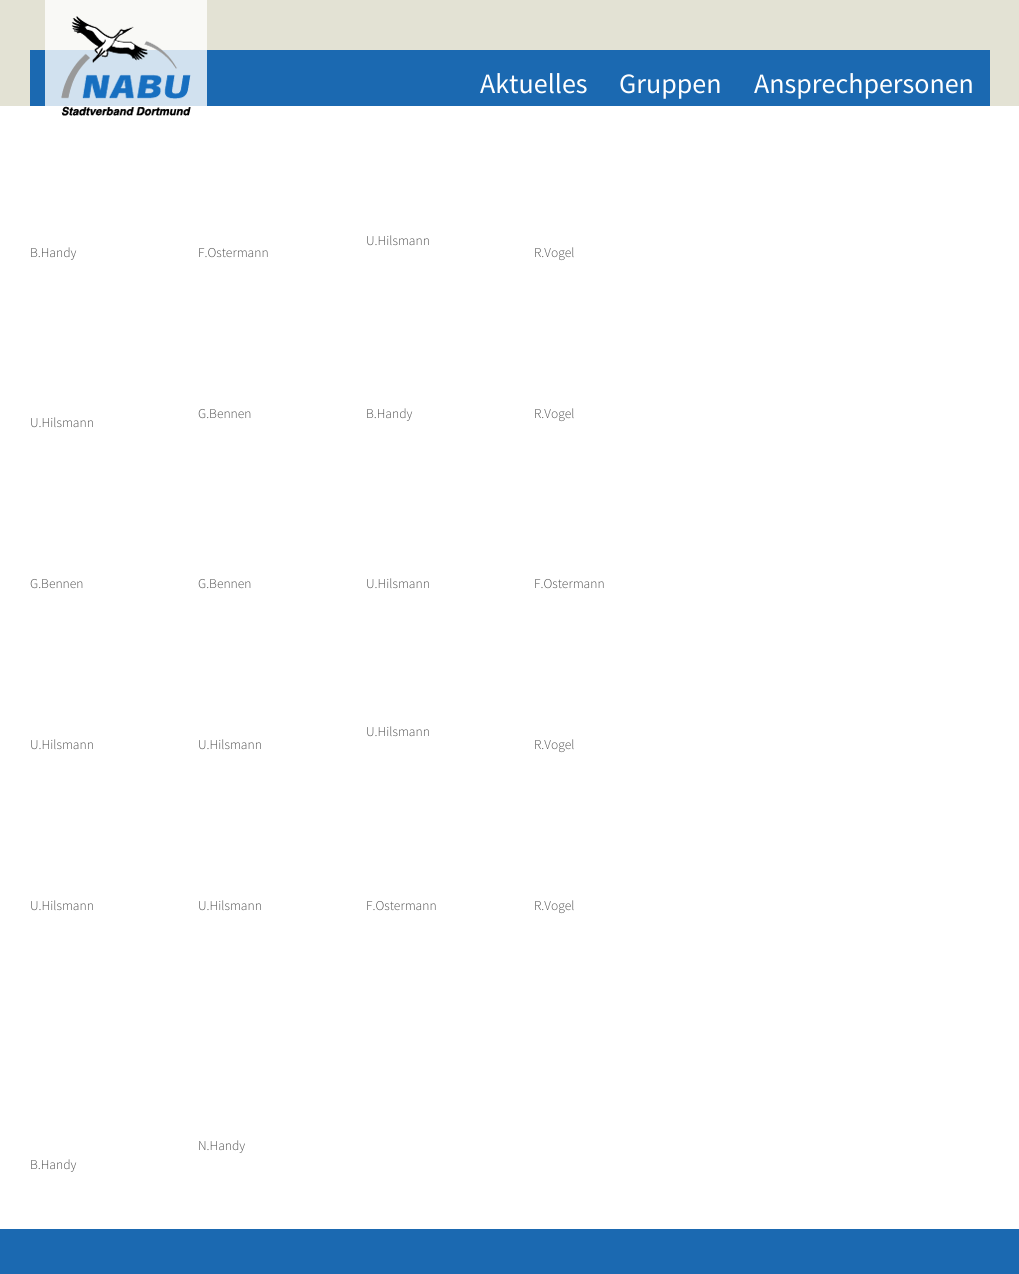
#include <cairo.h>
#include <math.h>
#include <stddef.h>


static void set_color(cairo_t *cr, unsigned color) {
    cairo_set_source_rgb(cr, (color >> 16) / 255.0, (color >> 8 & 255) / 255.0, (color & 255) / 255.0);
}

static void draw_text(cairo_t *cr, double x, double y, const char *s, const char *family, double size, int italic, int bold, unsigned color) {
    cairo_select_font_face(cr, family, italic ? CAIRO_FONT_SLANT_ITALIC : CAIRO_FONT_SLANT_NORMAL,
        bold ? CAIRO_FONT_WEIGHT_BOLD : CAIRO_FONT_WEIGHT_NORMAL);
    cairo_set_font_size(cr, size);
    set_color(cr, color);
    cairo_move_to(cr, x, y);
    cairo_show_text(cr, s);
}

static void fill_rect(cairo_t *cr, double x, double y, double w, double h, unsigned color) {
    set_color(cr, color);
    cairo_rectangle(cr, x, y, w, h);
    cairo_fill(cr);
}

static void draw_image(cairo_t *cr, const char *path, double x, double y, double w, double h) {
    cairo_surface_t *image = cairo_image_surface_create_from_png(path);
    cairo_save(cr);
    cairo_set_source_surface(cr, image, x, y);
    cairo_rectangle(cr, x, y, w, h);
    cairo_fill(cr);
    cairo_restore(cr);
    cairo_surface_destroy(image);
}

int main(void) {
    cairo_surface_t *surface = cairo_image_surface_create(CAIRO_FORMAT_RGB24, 1019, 1274);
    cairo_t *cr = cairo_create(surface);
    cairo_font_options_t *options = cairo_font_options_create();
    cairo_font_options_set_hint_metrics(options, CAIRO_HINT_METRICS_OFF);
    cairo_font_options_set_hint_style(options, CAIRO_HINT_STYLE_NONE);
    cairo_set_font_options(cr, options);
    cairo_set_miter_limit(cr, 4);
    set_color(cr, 0xFFFFFF);
    cairo_paint(cr);
    fill_rect(cr, 0, 0, 1019, 106, 0xE3E2D4);
    fill_rect(cr, 45, 0, 162, 50, 0xF9F9F6);
    fill_rect(cr, 30, 50, 960, 56, 0x1B69B1);
    fill_rect(cr, 45, 50, 162, 56, 0xD1E1EF);
    draw_image(cr, "assets/img1.png", 61, 16, 130, 100);
    draw_text(cr, 480, 93, "Aktuelles", "Source Sans Pro", 28, 0, 0, 0xFFFFFF);
    draw_text(cr, 619, 93, "Gruppen", "Source Sans Pro", 28, 0, 0, 0xFFFFFF);
    draw_text(cr, 754, 93, "Ansprechpersonen", "Source Sans Pro", 28, 0, 0, 0xFFFFFF);
    draw_text(cr, 366, 245, "U.Hilsmann", "Source Sans Pro Light", 13.5, 0, 0, 0x4E4E4E);
    draw_text(cr, 30, 257, "B.Handy", "Source Sans Pro Light", 13.5, 0, 0, 0x4E4E4E);
    draw_text(cr, 198, 257, "F.Ostermann", "Source Sans Pro Light", 13.5, 0, 0, 0x4E4E4E);
    draw_text(cr, 534, 257, "R.Vogel", "Source Sans Pro Light", 13.5, 0, 0, 0x4E4E4E);
    draw_text(cr, 30, 427, "U.Hilsmann", "Source Sans Pro Light", 13.5, 0, 0, 0x4E4E4E);
    draw_text(cr, 198, 418, "G.Bennen", "Source Sans Pro Light", 13.5, 0, 0, 0x4E4E4E);
    draw_text(cr, 366, 418, "B.Handy", "Source Sans Pro Light", 13.5, 0, 0, 0x4E4E4E);
    draw_text(cr, 534, 418, "R.Vogel", "Source Sans Pro Light", 13.5, 0, 0, 0x4E4E4E);
    draw_text(cr, 30, 588, "G.Bennen", "Source Sans Pro Light", 13.5, 0, 0, 0x4E4E4E);
    draw_text(cr, 198, 588, "G.Bennen", "Source Sans Pro Light", 13.5, 0, 0, 0x4E4E4E);
    draw_text(cr, 366, 588, "U.Hilsmann", "Source Sans Pro Light", 13.5, 0, 0, 0x4E4E4E);
    draw_text(cr, 534, 588, "F.Ostermann", "Source Sans Pro Light", 13.5, 0, 0, 0x4E4E4E);
    draw_text(cr, 366, 736, "U.Hilsmann", "Source Sans Pro Light", 13.5, 0, 0, 0x4E4E4E);
    draw_text(cr, 30, 749, "U.Hilsmann", "Source Sans Pro Light", 13.5, 0, 0, 0x4E4E4E);
    draw_text(cr, 198, 749, "U.Hilsmann", "Source Sans Pro Light", 13.5, 0, 0, 0x4E4E4E);
    draw_text(cr, 534, 749, "R.Vogel", "Source Sans Pro Light", 13.5, 0, 0, 0x4E4E4E);
    draw_text(cr, 30, 910, "U.Hilsmann", "Source Sans Pro Light", 13.5, 0, 0, 0x4E4E4E);
    draw_text(cr, 198, 910, "U.Hilsmann", "Source Sans Pro Light", 13.5, 0, 0, 0x4E4E4E);
    draw_text(cr, 366, 910, "F.Ostermann", "Source Sans Pro Light", 13.5, 0, 0, 0x4E4E4E);
    draw_text(cr, 534, 910, "R.Vogel", "Source Sans Pro Light", 13.5, 0, 0, 0x4E4E4E);
    draw_text(cr, 198, 1150, "N.Handy", "Source Sans Pro Light", 13.5, 0, 0, 0x4E4E4E);
    draw_text(cr, 30, 1169, "B.Handy", "Source Sans Pro Light", 13.5, 0, 0, 0x4E4E4E);
    fill_rect(cr, 0, 1229, 1019, 45, 0x1B69B1);
    cairo_surface_write_to_png(surface, "output.png");
    cairo_font_options_destroy(options);
    cairo_destroy(cr);
    cairo_surface_destroy(surface);
    return 0;
}
